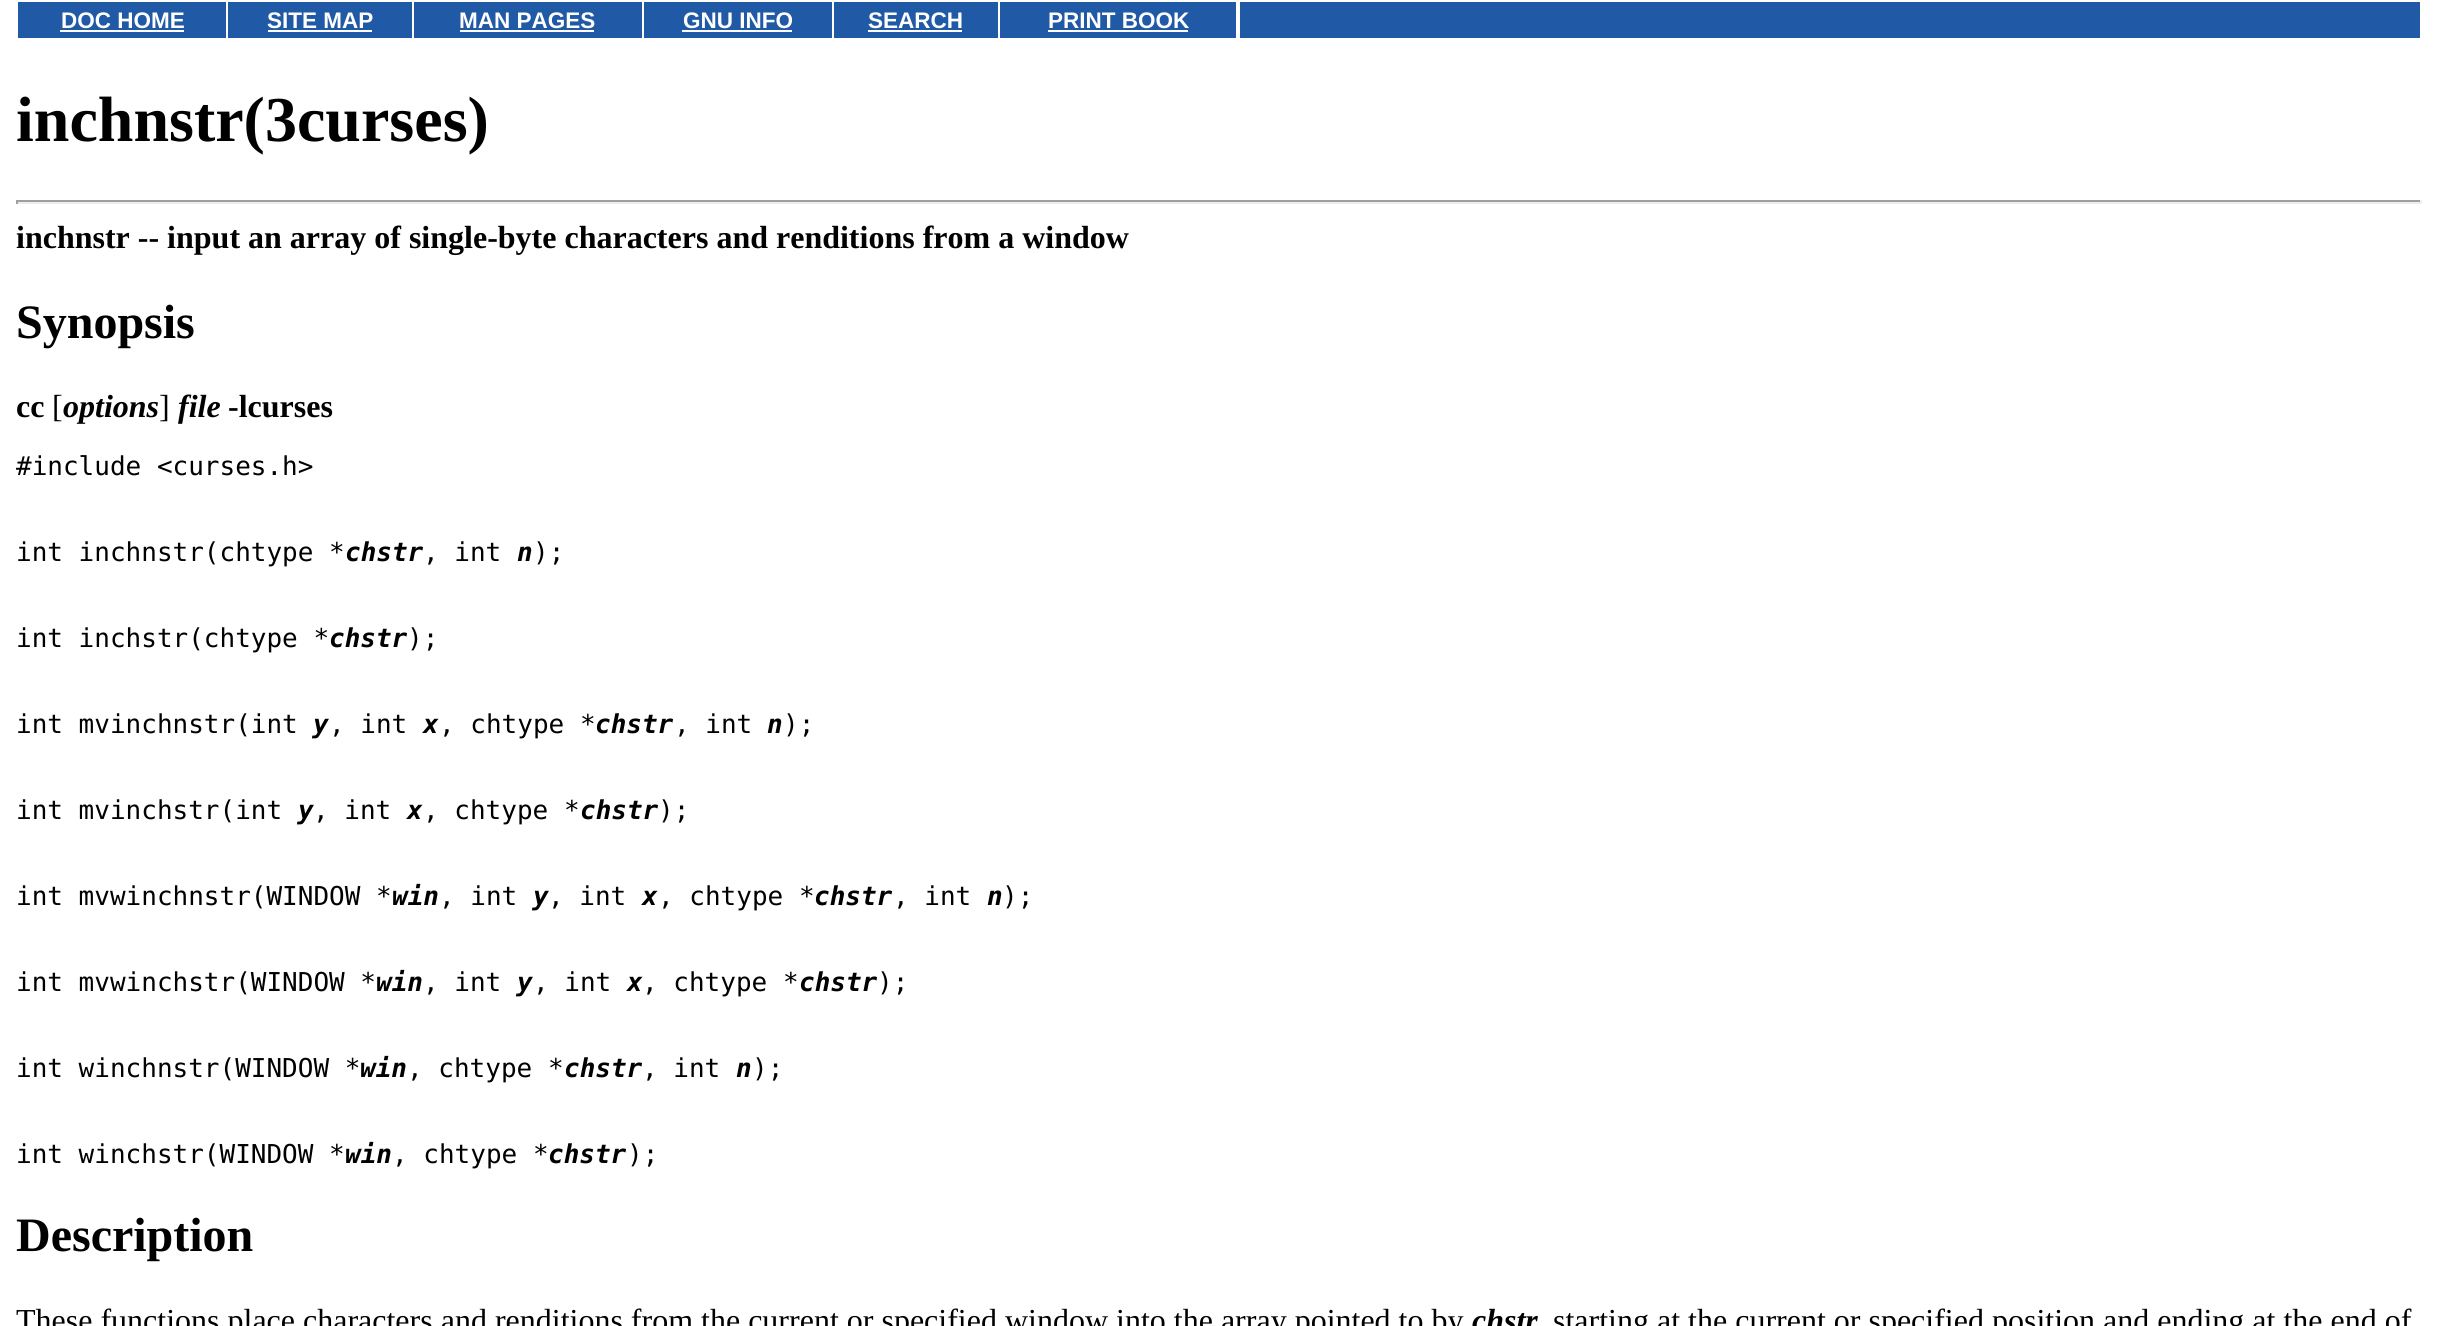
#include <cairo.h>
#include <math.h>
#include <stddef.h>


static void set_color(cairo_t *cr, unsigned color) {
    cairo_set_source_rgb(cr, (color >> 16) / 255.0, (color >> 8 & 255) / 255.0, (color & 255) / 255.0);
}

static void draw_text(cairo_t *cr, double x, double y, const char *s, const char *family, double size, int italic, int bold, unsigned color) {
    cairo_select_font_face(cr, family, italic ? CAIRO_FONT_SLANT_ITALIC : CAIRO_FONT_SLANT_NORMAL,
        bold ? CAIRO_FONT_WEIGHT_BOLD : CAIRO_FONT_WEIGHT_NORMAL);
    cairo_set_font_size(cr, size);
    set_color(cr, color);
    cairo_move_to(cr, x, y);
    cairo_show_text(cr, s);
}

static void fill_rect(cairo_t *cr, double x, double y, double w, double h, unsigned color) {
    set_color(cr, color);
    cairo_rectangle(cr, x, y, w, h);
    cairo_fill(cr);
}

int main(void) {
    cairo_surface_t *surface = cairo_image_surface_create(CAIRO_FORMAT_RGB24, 2438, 1326);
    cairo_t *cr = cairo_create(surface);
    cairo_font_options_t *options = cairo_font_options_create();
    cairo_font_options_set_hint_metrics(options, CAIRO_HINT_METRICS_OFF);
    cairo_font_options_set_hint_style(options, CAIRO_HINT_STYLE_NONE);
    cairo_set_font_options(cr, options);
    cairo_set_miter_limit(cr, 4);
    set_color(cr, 0xFFFFFF);
    cairo_paint(cr);
    fill_rect(cr, 18, 2, 208, 36, 0x2059A6);
    draw_text(cr, 61, 28, "DOC HOME", "Liberation Sans", 22.5, 0, 1, 0xFFFFFF);
    fill_rect(cr, 60, 30, 124, 2, 0xFFFFFF);
    fill_rect(cr, 228, 2, 184, 36, 0x2059A6);
    draw_text(cr, 267, 28, "SITE MAP", "Liberation Sans", 22.5, 0, 1, 0xFFFFFF);
    fill_rect(cr, 268, 30, 104, 2, 0xFFFFFF);
    fill_rect(cr, 414, 2, 228, 36, 0x2059A6);
    draw_text(cr, 459, 28, "MAN PAGES", "Liberation Sans", 22.5, 0, 1, 0xFFFFFF);
    fill_rect(cr, 460, 30, 134, 2, 0xFFFFFF);
    fill_rect(cr, 644, 2, 188, 36, 0x2059A6);
    draw_text(cr, 683, 28, "GNU INFO", "Liberation Sans", 22.5, 0, 1, 0xFFFFFF);
    fill_rect(cr, 682, 30, 110, 2, 0xFFFFFF);
    fill_rect(cr, 834, 2, 164, 36, 0x2059A6);
    draw_text(cr, 868, 28, "SEARCH", "Liberation Sans", 22.5, 0, 1, 0xFFFFFF);
    fill_rect(cr, 868, 30, 94, 2, 0xFFFFFF);
    fill_rect(cr, 1000, 2, 236, 36, 0x2059A6);
    draw_text(cr, 1048, 28, "PRINT BOOK", "Liberation Sans", 22.5, 0, 1, 0xFFFFFF);
    fill_rect(cr, 1048, 30, 140, 2, 0xFFFFFF);
    fill_rect(cr, 1240, 2, 1180, 36, 0x2059A6);
    draw_text(cr, 16, 141, "inchnstr(3curses)", "Liberation Serif", 64, 0, 1, 0x000000);
    fill_rect(cr, 16, 200, 2406, 2, 0x9F9F9F);
    fill_rect(cr, 2420, 200, 2, 4, 0xEEEEEE);
    fill_rect(cr, 16, 202, 2406, 2, 0xEEEEEE);
    fill_rect(cr, 16, 200, 2, 4, 0x9F9F9F);
    draw_text(cr, 16, 248, "inchnstr -- input an array of single-byte characters and renditions from a window", "Liberation Serif", 32, 0, 1, 0x000000);
    draw_text(cr, 16, 338, "Synopsis", "Liberation Serif", 48, 0, 1, 0x000000);
    draw_text(cr, 16, 417, "cc", "Liberation Serif", 32, 0, 1, 0x000000);
    draw_text(cr, 52, 417, "[", "Liberation Serif", 32, 0, 0, 0x000000);
    draw_text(cr, 63, 417, "options", "Liberation Serif", 32, 1, 1, 0x000000);
    draw_text(cr, 159, 417, "]", "Liberation Serif", 32, 0, 0, 0x000000);
    draw_text(cr, 178, 417, "file", "Liberation Serif", 32, 1, 1, 0x000000);
    draw_text(cr, 228, 417, "-lcurses", "Liberation Serif", 32, 0, 1, 0x000000);
    draw_text(cr, 16, 475, "#include <curses.h>", "DejaVu Sans Mono", 26, 0, 0, 0x000000);
    draw_text(cr, 16, 561, "int inchnstr(chtype *", "DejaVu Sans Mono", 26, 0, 0, 0x000000);
    draw_text(cr, 345, 561, "chstr", "DejaVu Sans Mono", 26, 1, 1, 0x000000);
    draw_text(cr, 423, 561, ", int", "DejaVu Sans Mono", 26, 0, 0, 0x000000);
    draw_text(cr, 517, 561, "n", "DejaVu Sans Mono", 26, 1, 1, 0x000000);
    draw_text(cr, 533, 561, ");", "DejaVu Sans Mono", 26, 0, 0, 0x000000);
    draw_text(cr, 16, 647, "int inchstr(chtype *", "DejaVu Sans Mono", 26, 0, 0, 0x000000);
    draw_text(cr, 329, 647, "chstr", "DejaVu Sans Mono", 26, 1, 1, 0x000000);
    draw_text(cr, 407, 647, ");", "DejaVu Sans Mono", 26, 0, 0, 0x000000);
    draw_text(cr, 16, 733, "int mvinchnstr(int", "DejaVu Sans Mono", 26, 0, 0, 0x000000);
    draw_text(cr, 313, 733, "y", "DejaVu Sans Mono", 26, 1, 1, 0x000000);
    draw_text(cr, 329, 733, ", int", "DejaVu Sans Mono", 26, 0, 0, 0x000000);
    draw_text(cr, 423, 733, "x", "DejaVu Sans Mono", 26, 1, 1, 0x000000);
    draw_text(cr, 439, 733, ", chtype *", "DejaVu Sans Mono", 26, 0, 0, 0x000000);
    draw_text(cr, 595, 733, "chstr", "DejaVu Sans Mono", 26, 1, 1, 0x000000);
    draw_text(cr, 674, 733, ", int", "DejaVu Sans Mono", 26, 0, 0, 0x000000);
    draw_text(cr, 767, 733, "n", "DejaVu Sans Mono", 26, 1, 1, 0x000000);
    draw_text(cr, 783, 733, ");", "DejaVu Sans Mono", 26, 0, 0, 0x000000);
    draw_text(cr, 16, 819, "int mvinchstr(int", "DejaVu Sans Mono", 26, 0, 0, 0x000000);
    draw_text(cr, 298, 819, "y", "DejaVu Sans Mono", 26, 1, 1, 0x000000);
    draw_text(cr, 313, 819, ", int", "DejaVu Sans Mono", 26, 0, 0, 0x000000);
    draw_text(cr, 407, 819, "x", "DejaVu Sans Mono", 26, 1, 1, 0x000000);
    draw_text(cr, 423, 819, ", chtype *", "DejaVu Sans Mono", 26, 0, 0, 0x000000);
    draw_text(cr, 580, 819, "chstr", "DejaVu Sans Mono", 26, 1, 1, 0x000000);
    draw_text(cr, 658, 819, ");", "DejaVu Sans Mono", 26, 0, 0, 0x000000);
    draw_text(cr, 16, 905, "int mvwinchnstr(WINDOW *", "DejaVu Sans Mono", 26, 0, 0, 0x000000);
    draw_text(cr, 392, 905, "win", "DejaVu Sans Mono", 26, 1, 1, 0x000000);
    draw_text(cr, 439, 905, ", int", "DejaVu Sans Mono", 26, 0, 0, 0x000000);
    draw_text(cr, 533, 905, "y", "DejaVu Sans Mono", 26, 1, 1, 0x000000);
    draw_text(cr, 548, 905, ", int", "DejaVu Sans Mono", 26, 0, 0, 0x000000);
    draw_text(cr, 642, 905, "x", "DejaVu Sans Mono", 26, 1, 1, 0x000000);
    draw_text(cr, 658, 905, ", chtype *", "DejaVu Sans Mono", 26, 0, 0, 0x000000);
    draw_text(cr, 814, 905, "chstr", "DejaVu Sans Mono", 26, 1, 1, 0x000000);
    draw_text(cr, 893, 905, ", int", "DejaVu Sans Mono", 26, 0, 0, 0x000000);
    draw_text(cr, 987, 905, "n", "DejaVu Sans Mono", 26, 1, 1, 0x000000);
    draw_text(cr, 1002, 905, ");", "DejaVu Sans Mono", 26, 0, 0, 0x000000);
    draw_text(cr, 16, 991, "int mvwinchstr(WINDOW *", "DejaVu Sans Mono", 26, 0, 0, 0x000000);
    draw_text(cr, 376, 991, "win", "DejaVu Sans Mono", 26, 1, 1, 0x000000);
    draw_text(cr, 423, 991, ", int", "DejaVu Sans Mono", 26, 0, 0, 0x000000);
    draw_text(cr, 517, 991, "y", "DejaVu Sans Mono", 26, 1, 1, 0x000000);
    draw_text(cr, 533, 991, ", int", "DejaVu Sans Mono", 26, 0, 0, 0x000000);
    draw_text(cr, 627, 991, "x", "DejaVu Sans Mono", 26, 1, 1, 0x000000);
    draw_text(cr, 642, 991, ", chtype *", "DejaVu Sans Mono", 26, 0, 0, 0x000000);
    draw_text(cr, 799, 991, "chstr", "DejaVu Sans Mono", 26, 1, 1, 0x000000);
    draw_text(cr, 877, 991, ");", "DejaVu Sans Mono", 26, 0, 0, 0x000000);
    draw_text(cr, 16, 1077, "int winchnstr(WINDOW *", "DejaVu Sans Mono", 26, 0, 0, 0x000000);
    draw_text(cr, 360, 1077, "win", "DejaVu Sans Mono", 26, 1, 1, 0x000000);
    draw_text(cr, 407, 1077, ", chtype *", "DejaVu Sans Mono", 26, 0, 0, 0x000000);
    draw_text(cr, 564, 1077, "chstr", "DejaVu Sans Mono", 26, 1, 1, 0x000000);
    draw_text(cr, 642, 1077, ", int", "DejaVu Sans Mono", 26, 0, 0, 0x000000);
    draw_text(cr, 736, 1077, "n", "DejaVu Sans Mono", 26, 1, 1, 0x000000);
    draw_text(cr, 752, 1077, ");", "DejaVu Sans Mono", 26, 0, 0, 0x000000);
    draw_text(cr, 16, 1163, "int winchstr(WINDOW *", "DejaVu Sans Mono", 26, 0, 0, 0x000000);
    draw_text(cr, 345, 1163, "win", "DejaVu Sans Mono", 26, 1, 1, 0x000000);
    draw_text(cr, 392, 1163, ", chtype *", "DejaVu Sans Mono", 26, 0, 0, 0x000000);
    draw_text(cr, 548, 1163, "chstr", "DejaVu Sans Mono", 26, 1, 1, 0x000000);
    draw_text(cr, 627, 1163, ");", "DejaVu Sans Mono", 26, 0, 0, 0x000000);
    draw_text(cr, 16, 1251, "Description", "Liberation Serif", 48, 0, 1, 0x000000);
    draw_text(cr, 16, 1331, "These functions place characters and renditions from the current or specified window into the array pointed to by", "Liberation Serif", 32, 0, 0, 0x000000);
    draw_text(cr, 1472, 1331, "chstr", "Liberation Serif", 32, 1, 1, 0x000000);
    draw_text(cr, 1553, 1331, "starting at the current or specified position and ending at the end of", "Liberation Serif", 32, 0, 0, 0x000000);
    cairo_surface_write_to_png(surface, "output.png");
    cairo_font_options_destroy(options);
    cairo_destroy(cr);
    cairo_surface_destroy(surface);
    return 0;
}
